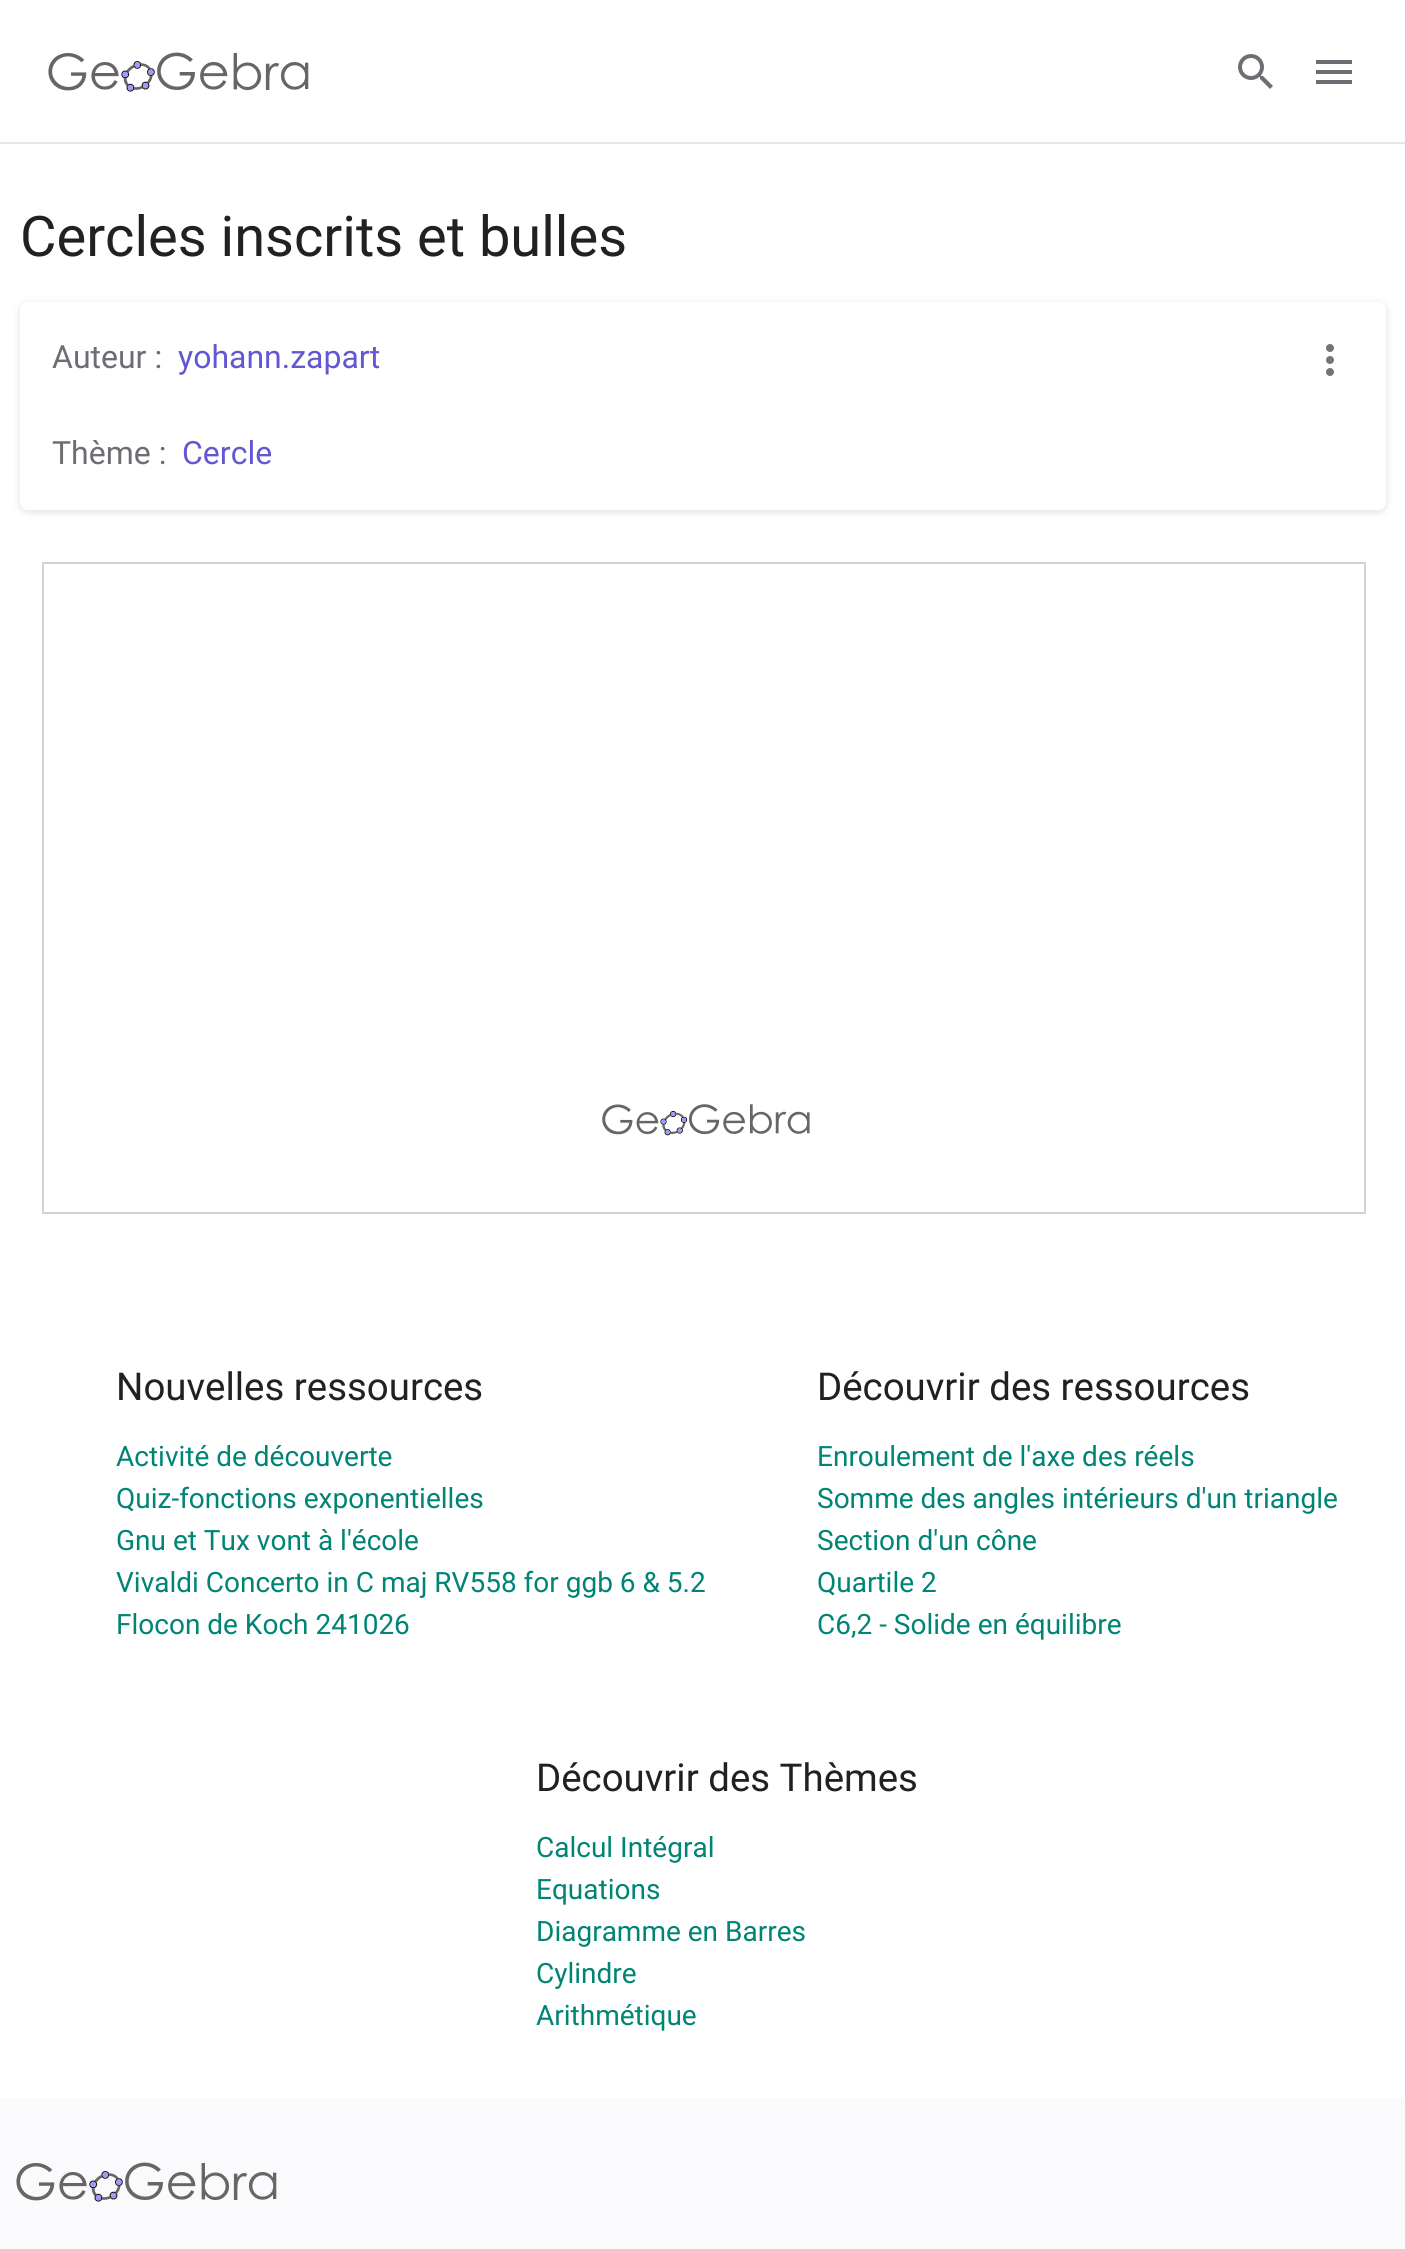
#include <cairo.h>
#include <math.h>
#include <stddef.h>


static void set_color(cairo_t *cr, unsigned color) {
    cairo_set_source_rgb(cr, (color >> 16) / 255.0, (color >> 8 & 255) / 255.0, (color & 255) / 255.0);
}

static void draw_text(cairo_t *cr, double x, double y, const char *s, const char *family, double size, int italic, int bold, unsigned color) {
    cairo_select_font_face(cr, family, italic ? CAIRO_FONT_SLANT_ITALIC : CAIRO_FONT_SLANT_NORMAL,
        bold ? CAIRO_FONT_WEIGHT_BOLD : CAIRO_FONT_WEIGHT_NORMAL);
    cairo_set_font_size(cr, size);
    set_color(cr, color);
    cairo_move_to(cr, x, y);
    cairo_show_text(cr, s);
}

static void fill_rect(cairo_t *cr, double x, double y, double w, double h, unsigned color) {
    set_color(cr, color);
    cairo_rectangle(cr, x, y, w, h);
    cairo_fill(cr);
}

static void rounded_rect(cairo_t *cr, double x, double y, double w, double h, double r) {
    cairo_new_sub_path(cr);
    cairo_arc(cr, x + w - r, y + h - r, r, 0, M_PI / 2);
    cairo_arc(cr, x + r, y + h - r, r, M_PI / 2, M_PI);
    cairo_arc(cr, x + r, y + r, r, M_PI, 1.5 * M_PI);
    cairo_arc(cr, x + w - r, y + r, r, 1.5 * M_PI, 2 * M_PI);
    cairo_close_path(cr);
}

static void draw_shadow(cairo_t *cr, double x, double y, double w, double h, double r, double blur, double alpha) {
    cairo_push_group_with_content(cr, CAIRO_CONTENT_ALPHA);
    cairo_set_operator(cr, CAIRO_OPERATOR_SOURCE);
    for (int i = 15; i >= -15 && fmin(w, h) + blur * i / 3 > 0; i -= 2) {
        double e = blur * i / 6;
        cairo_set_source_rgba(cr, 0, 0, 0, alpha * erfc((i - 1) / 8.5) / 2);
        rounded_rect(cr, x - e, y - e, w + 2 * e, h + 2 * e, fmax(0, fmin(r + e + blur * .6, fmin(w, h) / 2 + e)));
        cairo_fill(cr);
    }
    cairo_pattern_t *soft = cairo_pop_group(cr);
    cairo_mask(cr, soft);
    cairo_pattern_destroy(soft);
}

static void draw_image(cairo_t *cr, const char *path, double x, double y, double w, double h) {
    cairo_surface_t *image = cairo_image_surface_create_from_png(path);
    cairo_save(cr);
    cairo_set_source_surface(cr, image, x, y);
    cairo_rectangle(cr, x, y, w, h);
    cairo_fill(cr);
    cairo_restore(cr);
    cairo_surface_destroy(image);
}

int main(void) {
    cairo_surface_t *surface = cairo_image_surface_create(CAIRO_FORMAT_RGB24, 1405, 2249);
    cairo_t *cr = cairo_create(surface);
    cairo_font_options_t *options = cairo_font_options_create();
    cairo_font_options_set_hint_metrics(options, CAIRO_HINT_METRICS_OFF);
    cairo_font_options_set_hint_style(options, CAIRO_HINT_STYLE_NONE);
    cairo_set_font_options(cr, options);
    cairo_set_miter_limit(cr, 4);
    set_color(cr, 0xFFFFFF);
    cairo_paint(cr);
    fill_rect(cr, 0, 142, 1405, 2, 0xE6E6EB);
    draw_image(cr, "assets/img1.png", 48, 52, 261, 40);
    draw_image(cr, "assets/img2.png", 1238, 54, 35, 35);
    draw_image(cr, "assets/img3.png", 1316, 60, 36, 24);
    draw_text(cr, 20, 256, "Cercles inscrits et bulles", "Roboto", 56, 0, 0, 0x212121);
    set_color(cr, 0x1C1C1F);
    draw_shadow(cr, 20, 304, 1366, 208, 8, 4, 0.14);
    set_color(cr, 0xFFFFFF);
    rounded_rect(cr, 20, 302, 1366, 208, 8);
    cairo_fill(cr);
    draw_text(cr, 52, 368, "Auteur :", "Roboto", 32, 0, 0, 0x6E6D73);
    draw_text(cr, 178, 368, "yohann.zapart", "Roboto", 32, 0, 0, 0x6557D2);
    draw_text(cr, 52, 464, "Thème :", "Roboto", 32, 0, 0, 0x6E6D73);
    draw_text(cr, 182, 464, "Cercle", "Roboto", 32, 0, 0, 0x6557D2);
    draw_image(cr, "assets/img4.png", 1326, 344, 8, 32);
    draw_image(cr, "assets/img5.png", 602, 1104, 208, 32);
    cairo_rectangle(cr, 43, 563, 1322, 650);
    set_color(cr, 0xD3D3D3);
    cairo_stroke(cr);
    draw_text(cr, 116, 1400, "Nouvelles ressources", "Roboto", 38.4, 0, 0, 0x212121);
    draw_text(cr, 116, 1466, "Activité de découverte", "Roboto", 28, 0, 0, 0x008475);
    draw_text(cr, 116, 1508, "Quiz-fonctions exponentielles", "Roboto", 28, 0, 0, 0x008475);
    draw_text(cr, 116, 1550, "Gnu et Tux vont à l'école", "Roboto", 28, 0, 0, 0x008475);
    draw_text(cr, 116, 1592, "Vivaldi Concerto in C maj RV558 for ggb 6 & 5.2", "Roboto", 28, 0, 0, 0x008475);
    draw_text(cr, 116, 1634, "Flocon de Koch 241026", "Roboto", 28, 0, 0, 0x008475);
    draw_text(cr, 817, 1400, "Découvrir des ressources", "Roboto", 38.4, 0, 0, 0x212121);
    draw_text(cr, 817, 1466, "Enroulement de l'axe des réels", "Roboto", 28, 0, 0, 0x008475);
    draw_text(cr, 817, 1508, "Somme des angles intérieurs d'un triangle", "Roboto", 28, 0, 0, 0x008475);
    draw_text(cr, 817, 1550, "Section d'un cône", "Roboto", 28, 0, 0, 0x008475);
    draw_text(cr, 817, 1592, "Quartile 2", "Roboto", 28, 0, 0, 0x008475);
    draw_text(cr, 817, 1634, "C6,2 - Solide en équilibre", "Roboto", 28, 0, 0, 0x008475);
    draw_text(cr, 536, 1791, "Découvrir des Thèmes", "Roboto", 38.4, 0, 0, 0x212121);
    draw_text(cr, 536, 1857, "Calcul Intégral", "Roboto", 28, 0, 0, 0x008475);
    draw_text(cr, 536, 1899, "Equations", "Roboto", 28, 0, 0, 0x008475);
    draw_text(cr, 536, 1941, "Diagramme en Barres", "Roboto", 28, 0, 0, 0x008475);
    draw_text(cr, 536, 1983, "Cylindre", "Roboto", 28, 0, 0, 0x008475);
    draw_text(cr, 536, 2025, "Arithmétique", "Roboto", 28, 0, 0, 0x008475);
    fill_rect(cr, 0, 2098, 1405, 151, 0xFAFAFC);
    draw_image(cr, "assets/img6.png", 16, 2162, 261, 40);
    cairo_surface_write_to_png(surface, "output.png");
    cairo_font_options_destroy(options);
    cairo_destroy(cr);
    cairo_surface_destroy(surface);
    return 0;
}
